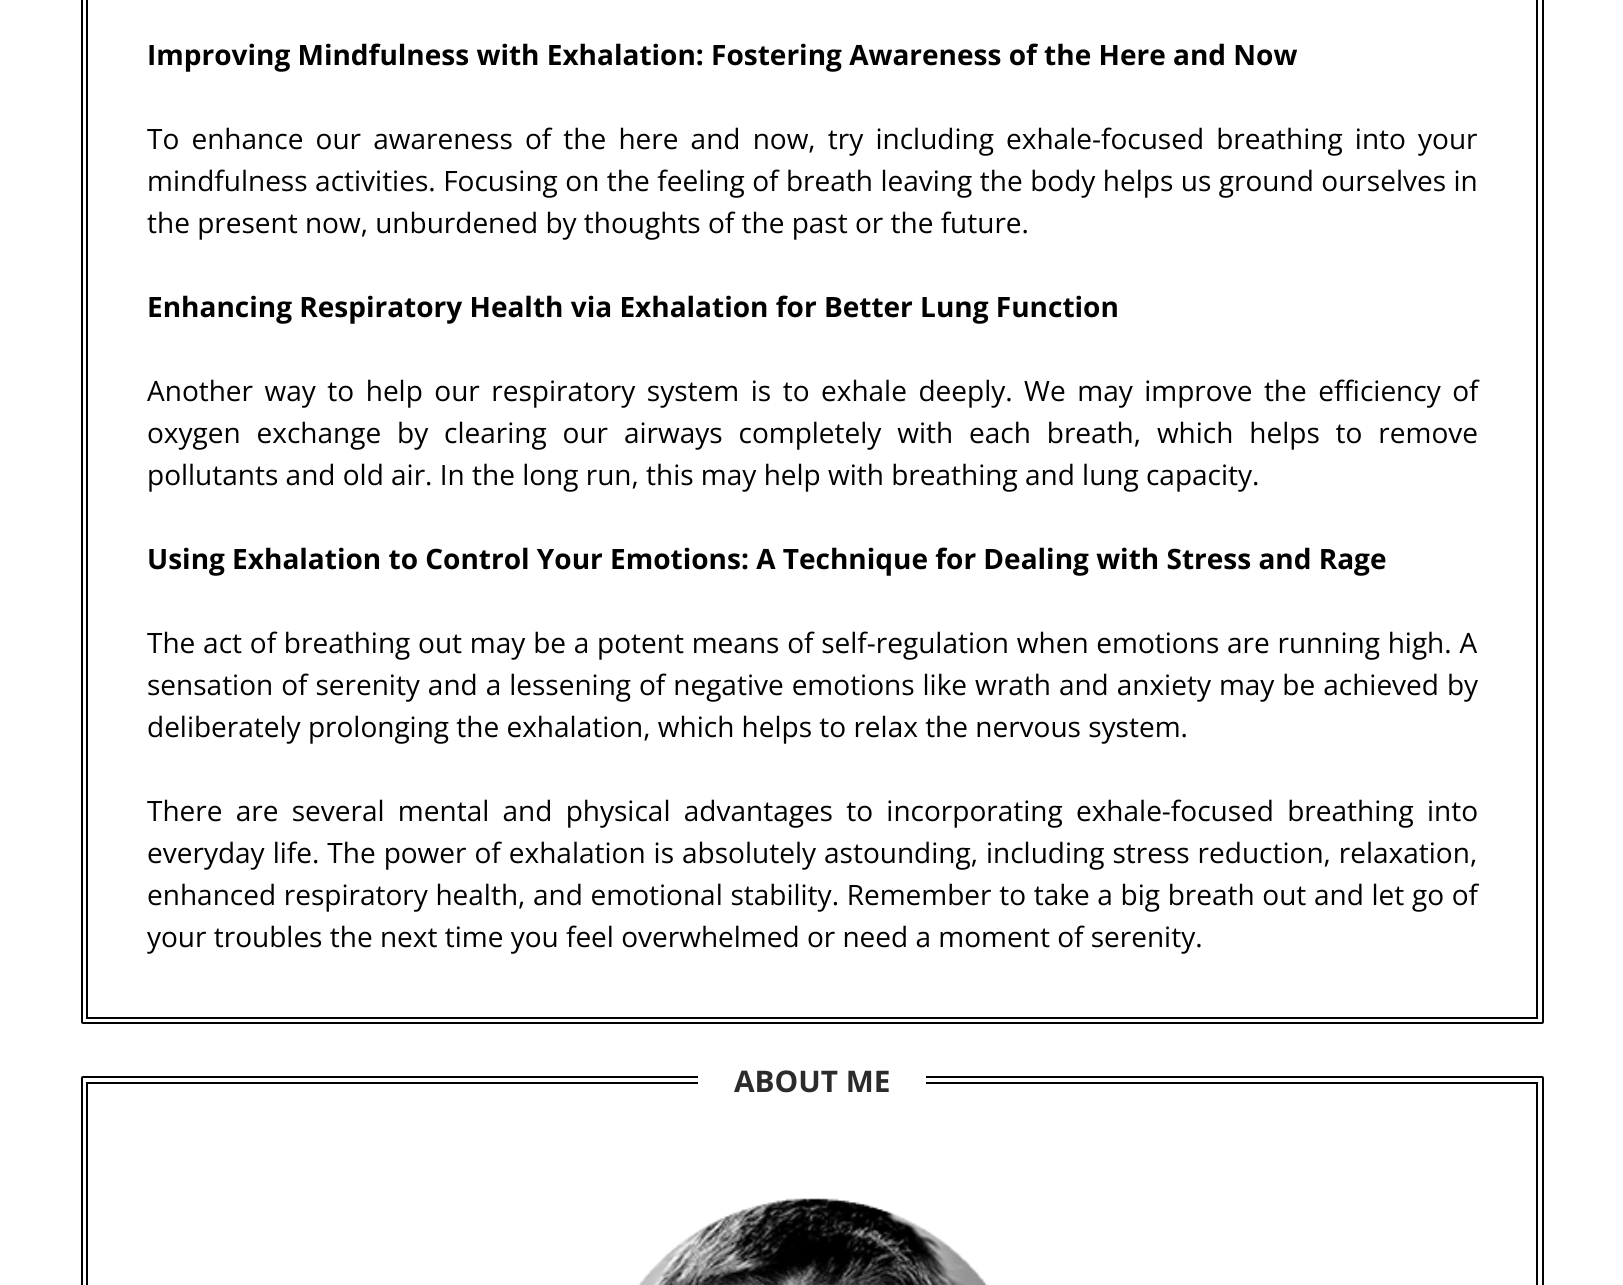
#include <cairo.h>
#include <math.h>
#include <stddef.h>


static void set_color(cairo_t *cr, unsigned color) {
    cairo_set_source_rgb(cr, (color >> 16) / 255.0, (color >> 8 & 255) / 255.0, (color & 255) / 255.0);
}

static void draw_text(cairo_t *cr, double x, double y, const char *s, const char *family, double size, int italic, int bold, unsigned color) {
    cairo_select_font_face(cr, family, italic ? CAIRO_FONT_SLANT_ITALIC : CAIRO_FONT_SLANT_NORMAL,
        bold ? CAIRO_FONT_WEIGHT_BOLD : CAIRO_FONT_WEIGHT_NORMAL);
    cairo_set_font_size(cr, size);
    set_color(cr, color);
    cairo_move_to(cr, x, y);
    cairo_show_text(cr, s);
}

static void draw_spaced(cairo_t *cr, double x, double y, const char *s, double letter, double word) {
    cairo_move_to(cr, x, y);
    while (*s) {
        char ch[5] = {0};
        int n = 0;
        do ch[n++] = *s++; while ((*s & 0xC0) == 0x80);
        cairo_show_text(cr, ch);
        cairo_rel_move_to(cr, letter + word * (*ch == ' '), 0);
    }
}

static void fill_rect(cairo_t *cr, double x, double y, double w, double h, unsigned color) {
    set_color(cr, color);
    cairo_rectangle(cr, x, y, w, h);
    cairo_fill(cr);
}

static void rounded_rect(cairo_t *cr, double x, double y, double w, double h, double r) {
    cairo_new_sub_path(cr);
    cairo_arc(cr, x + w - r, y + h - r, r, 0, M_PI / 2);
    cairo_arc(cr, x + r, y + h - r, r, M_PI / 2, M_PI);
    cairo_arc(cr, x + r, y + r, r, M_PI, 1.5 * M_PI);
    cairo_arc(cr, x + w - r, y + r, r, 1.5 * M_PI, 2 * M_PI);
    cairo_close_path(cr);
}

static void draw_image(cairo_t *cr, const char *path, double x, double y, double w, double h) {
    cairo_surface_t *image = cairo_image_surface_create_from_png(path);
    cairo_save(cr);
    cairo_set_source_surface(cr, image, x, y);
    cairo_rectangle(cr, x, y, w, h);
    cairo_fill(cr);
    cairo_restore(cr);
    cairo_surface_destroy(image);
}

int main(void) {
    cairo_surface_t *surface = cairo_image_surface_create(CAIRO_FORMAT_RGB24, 1623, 1285);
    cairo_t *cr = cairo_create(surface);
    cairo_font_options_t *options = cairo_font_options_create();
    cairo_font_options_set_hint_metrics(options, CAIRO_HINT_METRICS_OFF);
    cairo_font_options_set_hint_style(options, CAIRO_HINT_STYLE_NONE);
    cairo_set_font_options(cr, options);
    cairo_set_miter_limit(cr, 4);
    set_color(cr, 0xFFFFFF);
    cairo_paint(cr);
    rounded_rect(cr, 82, -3, 1461, 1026, 1);
    set_color(cr, 0x000000);
    cairo_stroke(cr);
    cairo_rectangle(cr, 87, -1, 1450, 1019);
    cairo_stroke(cr);
    draw_text(cr, 147, 65, "Improving Mindfulness with Exhalation: Fostering Awareness of the Here and Now", "Open Sans", 28, 0, 1, 0x000000);
    cairo_select_font_face(cr, "Open Sans", CAIRO_FONT_SLANT_NORMAL, CAIRO_FONT_WEIGHT_NORMAL);
    draw_spaced(cr, 147, 149, "To enhance our awareness of the here and now, try including exhale-focused breathing into your", 0, 4.9);
    draw_spaced(cr, 147, 191, "mindfulness activities. Focusing on the feeling of breath leaving the body helps us ground ourselves in", 0, 0.25);
    draw_text(cr, 147, 233, "the present now, unburdened by thoughts of the past or the future.", "Open Sans", 28, 0, 0, 0x000000);
    draw_text(cr, 147, 317, "Enhancing Respiratory Health via Exhalation for Better Lung Function", "Open Sans", 28, 0, 1, 0x000000);
    cairo_select_font_face(cr, "Open Sans", CAIRO_FONT_SLANT_NORMAL, CAIRO_FONT_WEIGHT_NORMAL);
    draw_spaced(cr, 147, 401, "Another way to help our respiratory system is to exhale deeply. We may improve the efficiency of", 0, 4.25);
    draw_spaced(cr, 147, 443, "oxygen exchange by clearing our airways completely with each breath, which helps to remove", 0, 8.6);
    draw_text(cr, 147, 485, "pollutants and old air. In the long run, this may help with breathing and lung capacity.", "Open Sans", 28, 0, 0, 0x000000);
    draw_text(cr, 147, 569, "Using Exhalation to Control Your Emotions: A Technique for Dealing with Stress and Rage", "Open Sans", 28, 0, 1, 0x000000);
    cairo_select_font_face(cr, "Open Sans", CAIRO_FONT_SLANT_NORMAL, CAIRO_FONT_WEIGHT_NORMAL);
    draw_spaced(cr, 147, 653, "The act of breathing out may be a potent means of self-regulation when emotions are running high. A", 0, 0.5);
    draw_spaced(cr, 147, 695, "sensation of serenity and a lessening of negative emotions like wrath and anxiety may be achieved by", 0, 0.7);
    draw_text(cr, 147, 737, "deliberately prolonging the exhalation, which helps to relax the nervous system.", "Open Sans", 28, 0, 0, 0x000000);
    draw_spaced(cr, 147, 821, "There are several mental and physical advantages to incorporating exhale-focused breathing into", 0, 6);
    draw_spaced(cr, 147, 863, "everyday life. The power of exhalation is absolutely astounding, including stress reduction, relaxation,", 0, 0.75);
    draw_spaced(cr, 147, 905, "enhanced respiratory health, and emotional stability. Remember to take a big breath out and let go of", 0, 0.4);
    draw_text(cr, 147, 947, "your troubles the next time you feel overwhelmed or need a moment of serenity.", "Open Sans", 28, 0, 0, 0x000000);
    rounded_rect(cr, 82, 1077, 1461, 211, 1);
    cairo_stroke(cr);
    cairo_rectangle(cr, 87, 1083, 1450, 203);
    cairo_stroke(cr);
    fill_rect(cr, 698, 1076, 228, 8, 0xFFFFFF);
    draw_text(cr, 734, 1092, "ABOUT ME", "Open Sans", 29.75, 0, 1, 0x2B2B2B);
    draw_image(cr, "assets/img1.png", 638, 1198, 350, 87);
    cairo_surface_write_to_png(surface, "output.png");
    cairo_font_options_destroy(options);
    cairo_destroy(cr);
    cairo_surface_destroy(surface);
    return 0;
}
